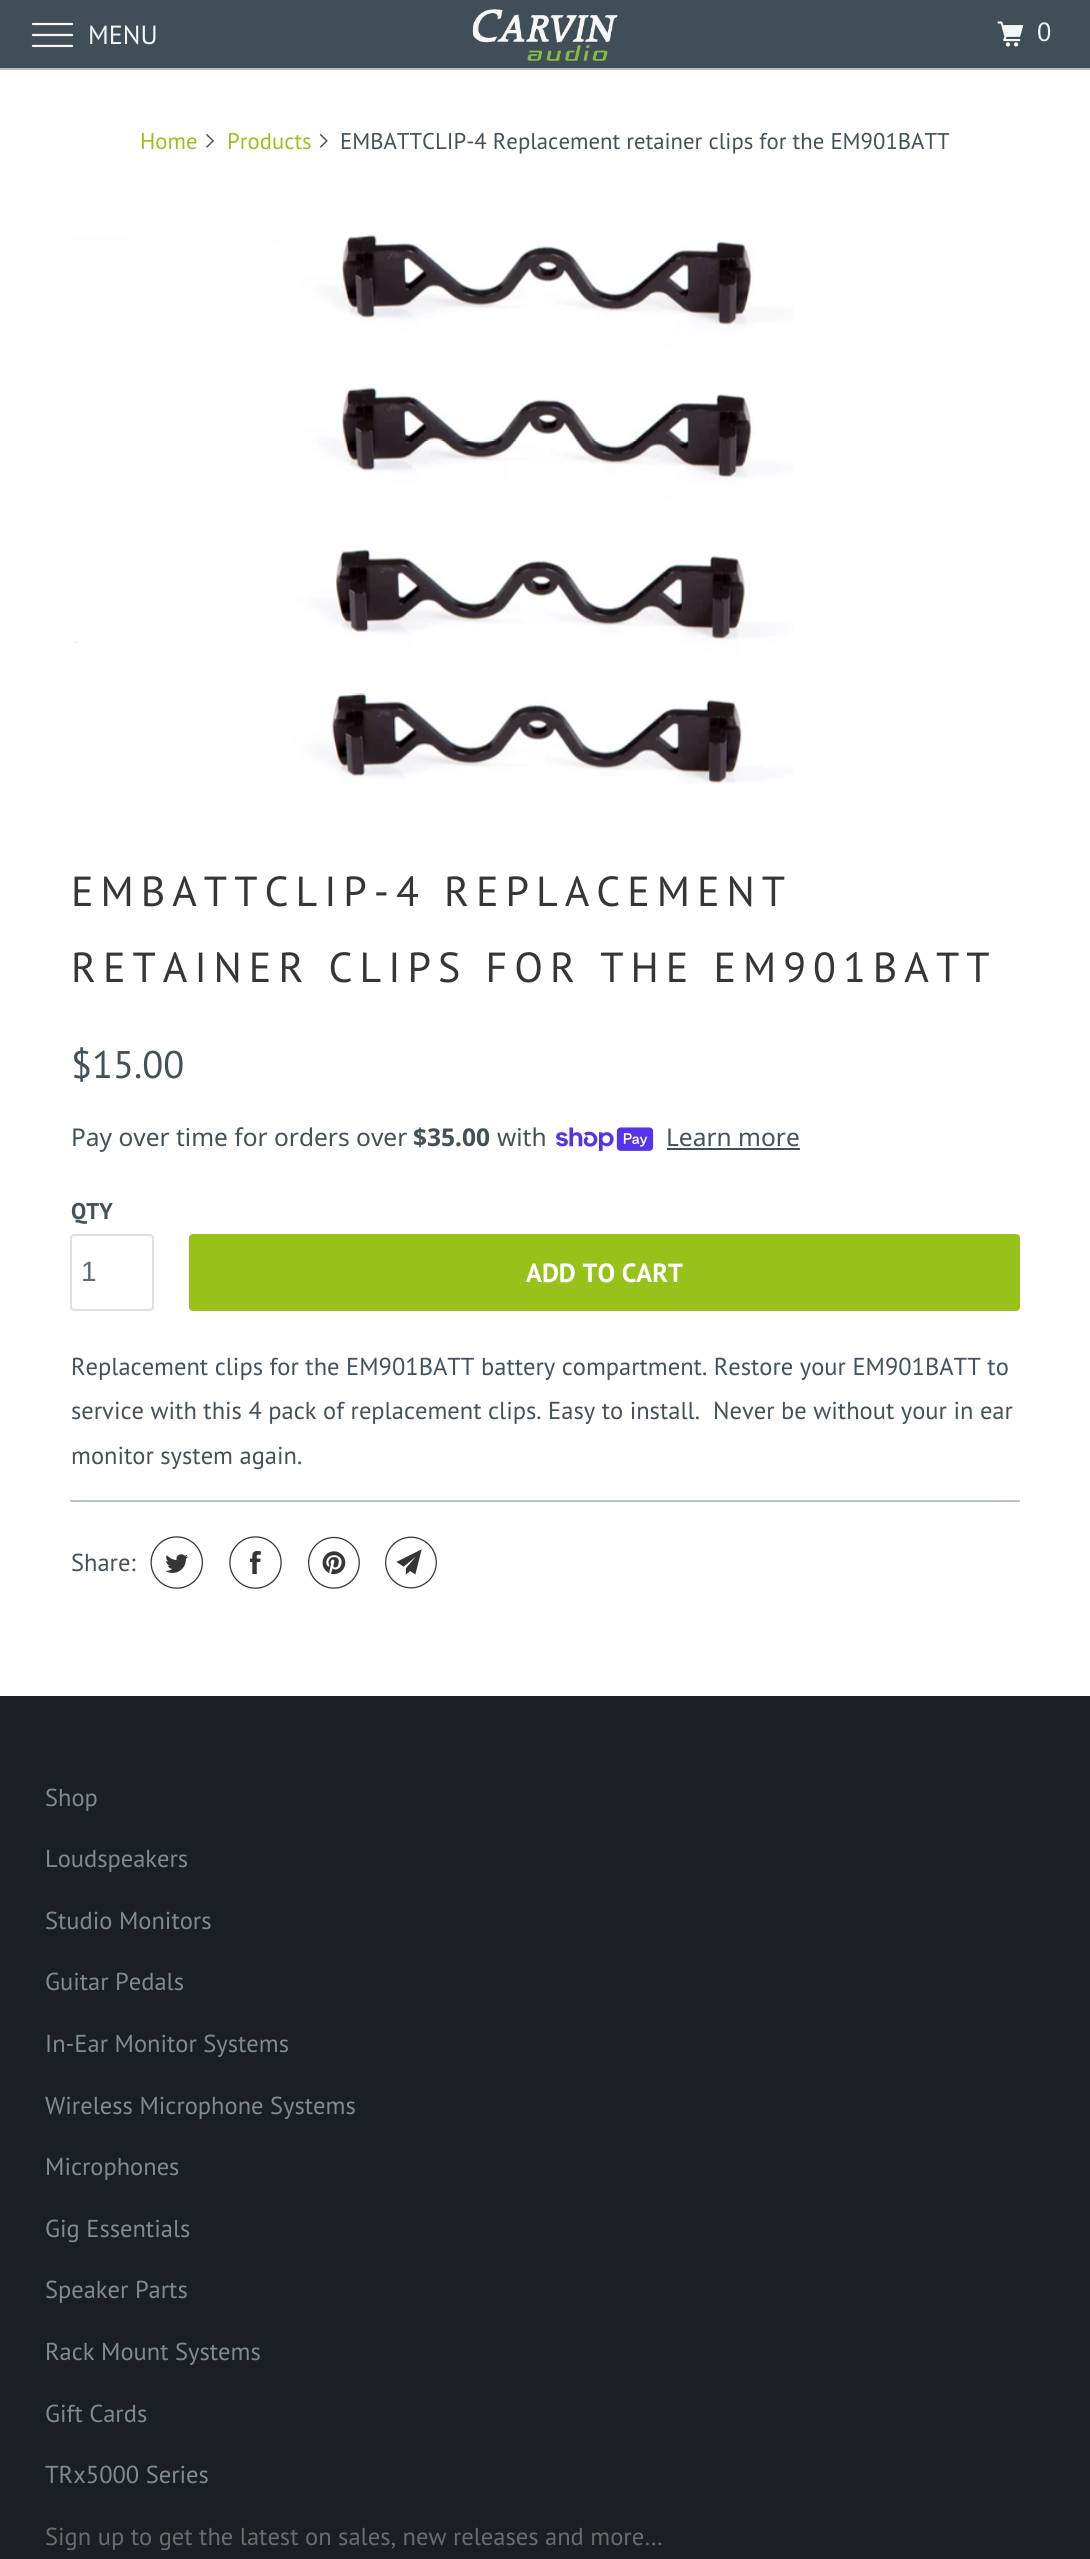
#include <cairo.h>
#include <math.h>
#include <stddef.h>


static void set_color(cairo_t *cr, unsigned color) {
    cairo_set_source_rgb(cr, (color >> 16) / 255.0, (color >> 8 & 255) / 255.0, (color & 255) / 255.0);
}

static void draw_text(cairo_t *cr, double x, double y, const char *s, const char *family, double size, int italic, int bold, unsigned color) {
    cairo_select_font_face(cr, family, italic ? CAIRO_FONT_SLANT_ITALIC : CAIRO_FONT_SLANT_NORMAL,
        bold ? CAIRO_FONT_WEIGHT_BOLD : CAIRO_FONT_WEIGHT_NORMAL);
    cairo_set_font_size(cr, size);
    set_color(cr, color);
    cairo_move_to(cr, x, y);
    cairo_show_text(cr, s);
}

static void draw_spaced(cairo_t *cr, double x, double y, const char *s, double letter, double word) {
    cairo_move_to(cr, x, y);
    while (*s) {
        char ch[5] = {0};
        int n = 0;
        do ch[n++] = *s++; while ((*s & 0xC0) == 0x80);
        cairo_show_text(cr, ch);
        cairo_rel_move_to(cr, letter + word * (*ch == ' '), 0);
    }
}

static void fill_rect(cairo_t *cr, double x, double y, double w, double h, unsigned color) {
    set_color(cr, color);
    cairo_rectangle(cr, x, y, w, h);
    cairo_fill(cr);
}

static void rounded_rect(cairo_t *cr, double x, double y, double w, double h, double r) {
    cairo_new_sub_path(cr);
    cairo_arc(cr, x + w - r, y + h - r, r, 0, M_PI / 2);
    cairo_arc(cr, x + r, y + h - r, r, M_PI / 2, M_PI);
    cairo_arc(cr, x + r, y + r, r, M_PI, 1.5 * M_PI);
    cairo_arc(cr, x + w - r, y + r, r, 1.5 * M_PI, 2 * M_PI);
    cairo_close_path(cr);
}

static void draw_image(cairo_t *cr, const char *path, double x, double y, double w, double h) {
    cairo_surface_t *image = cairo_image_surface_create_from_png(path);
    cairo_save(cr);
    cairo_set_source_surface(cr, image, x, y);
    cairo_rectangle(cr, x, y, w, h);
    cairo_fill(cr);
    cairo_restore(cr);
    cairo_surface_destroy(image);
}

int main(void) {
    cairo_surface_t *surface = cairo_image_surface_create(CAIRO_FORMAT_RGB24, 1090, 2559);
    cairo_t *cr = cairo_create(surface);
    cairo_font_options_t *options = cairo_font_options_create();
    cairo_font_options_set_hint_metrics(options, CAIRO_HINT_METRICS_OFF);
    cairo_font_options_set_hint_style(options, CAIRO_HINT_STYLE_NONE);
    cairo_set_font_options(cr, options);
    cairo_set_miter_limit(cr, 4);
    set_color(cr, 0xFFFFFF);
    cairo_paint(cr);
    fill_rect(cr, 0, 0, 1090, 68, 0x404F57);
    fill_rect(cr, 0, 68, 1090, 2, 0xB0BEBE);
    draw_image(cr, "assets/img1.png", 31, 22, 43, 26);
    draw_text(cr, 88, 44, "MENU", "PT Sans", 26.25, 0, 0, 0xF4F4F4);
    draw_image(cr, "assets/img2.png", 472, 9, 146, 52);
    draw_image(cr, "assets/img3.png", 997, 21, 27, 26);
    draw_text(cr, 1037, 41, "0", "PT Sans", 26.25, 0, 0, 0xF4F4F4);
    draw_text(cr, 140, 149, "Home", "PT Sans", 22.75, 0, 0, 0x97C21A);
    draw_image(cr, "assets/img4.png", 206, 134, 8, 14);
    draw_text(cr, 227, 149, "Products", "PT Sans", 22.75, 0, 0, 0x97C21A);
    draw_image(cr, "assets/img5.png", 319, 134, 9, 14);
    draw_text(cr, 340, 149, "EMBATTCLIP-4 Replacement retainer clips for the EM901BATT", "PT Sans", 22.75, 0, 0, 0x42515A);
    draw_image(cr, "assets/img6.png", 73, 234, 720, 550);
    cairo_set_font_size(cr, 42);
    set_color(cr, 0x363636);
    draw_spaced(cr, 71, 906, "EMBATTCLIP-4 REPLACEMENT", 7, 0);
    draw_spaced(cr, 71, 982, "RETAINER CLIPS FOR THE EM901BATT", 7, 0);
    draw_text(cr, 71, 1078, "$15.00", "PT Sans", 38.5, 0, 0, 0x42515A);
    draw_text(cr, 71, 1146, "Pay over time for orders over", "Noto Sans", 24.5, 0, 0, 0x42515A);
    draw_text(cr, 413, 1146, "$35.00", "Noto Sans", 24.5, 0, 1, 0x42515A);
    draw_text(cr, 497, 1146, "with", "Noto Sans", 24.5, 0, 0, 0x42515A);
    draw_image(cr, "assets/img7.png", 556, 1127, 98, 24);
    draw_text(cr, 666, 1146, "Learn more", "Noto Sans", 24.5, 0, 0, 0x42515A);
    fill_rect(cr, 667, 1148, 133, 2, 0x42515A);
    draw_text(cr, 71, 1219, "QTY", "PT Sans", 22.75, 0, 1, 0x42515A);
    rounded_rect(cr, 71, 1235, 82, 75, 3);
    set_color(cr, 0xDFDFDF);
    cairo_stroke(cr);
    draw_text(cr, 81, 1281, "1", "Liberation Sans", 28, 0, 0, 0x5F6A7D);
    set_color(cr, 0x97C21A);
    rounded_rect(cr, 189, 1234, 831, 77, 4);
    cairo_fill(cr);
    draw_text(cr, 526, 1282, "ADD TO CART", "PT Sans", 26.25, 0, 1, 0xFFFFFF);
    draw_text(cr, 71, 1375, "Replacement clips for the EM901BATT battery compartment. Restore your EM901BATT to", "PT Sans", 24.5, 0, 0, 0x42515A);
    draw_text(cr, 71, 1419, "service with this 4 pack of replacement clips. Easy to install.  Never be without your in ear", "PT Sans", 24.5, 0, 0, 0x42515A);
    draw_text(cr, 71, 1464, "monitor system again.", "PT Sans", 24.5, 0, 0, 0x42515A);
    fill_rect(cr, 70, 1500, 950, 2, 0xB8C6C6);
    draw_text(cr, 71, 1571, "Share:", "PT Sans", 24.5, 0, 0, 0x42515A);
    draw_image(cr, "assets/img8.png", 150, 1536, 53, 53);
    draw_image(cr, "assets/img9.png", 229, 1536, 53, 53);
    draw_image(cr, "assets/img10.png", 308, 1536, 52, 53);
    draw_image(cr, "assets/img11.png", 385, 1536, 52, 53);
    fill_rect(cr, 0, 1696, 1090, 863, 0x1B1F23);
    draw_text(cr, 45, 1806, "Shop", "PT Sans", 24.5, 0, 0, 0x7F8C8D);
    draw_text(cr, 45, 1867, "Loudspeakers", "PT Sans", 24.5, 0, 0, 0x7F8C8D);
    draw_text(cr, 45, 1929, "Studio Monitors", "PT Sans", 24.5, 0, 0, 0x7F8C8D);
    draw_text(cr, 45, 1990, "Guitar Pedals", "PT Sans", 24.5, 0, 0, 0x7F8C8D);
    draw_text(cr, 45, 2052, "In-Ear Monitor Systems", "PT Sans", 24.5, 0, 0, 0x7F8C8D);
    draw_text(cr, 45, 2114, "Wireless Microphone Systems", "PT Sans", 24.5, 0, 0, 0x7F8C8D);
    draw_text(cr, 45, 2175, "Microphones", "PT Sans", 24.5, 0, 0, 0x7F8C8D);
    draw_text(cr, 45, 2237, "Gig Essentials", "PT Sans", 24.5, 0, 0, 0x7F8C8D);
    draw_text(cr, 45, 2298, "Speaker Parts", "PT Sans", 24.5, 0, 0, 0x7F8C8D);
    draw_text(cr, 45, 2360, "Rack Mount Systems", "PT Sans", 24.5, 0, 0, 0x7F8C8D);
    draw_text(cr, 45, 2422, "Gift Cards", "PT Sans", 24.5, 0, 0, 0x7F8C8D);
    draw_text(cr, 45, 2483, "TRx5000 Series", "PT Sans", 24.5, 0, 0, 0x7F8C8D);
    draw_text(cr, 45, 2545, "Sign up to get the latest on sales, new releases and more…", "PT Sans", 24.5, 0, 0, 0x6B6B6B);
    cairo_surface_write_to_png(surface, "output.png");
    cairo_font_options_destroy(options);
    cairo_destroy(cr);
    cairo_surface_destroy(surface);
    return 0;
}
